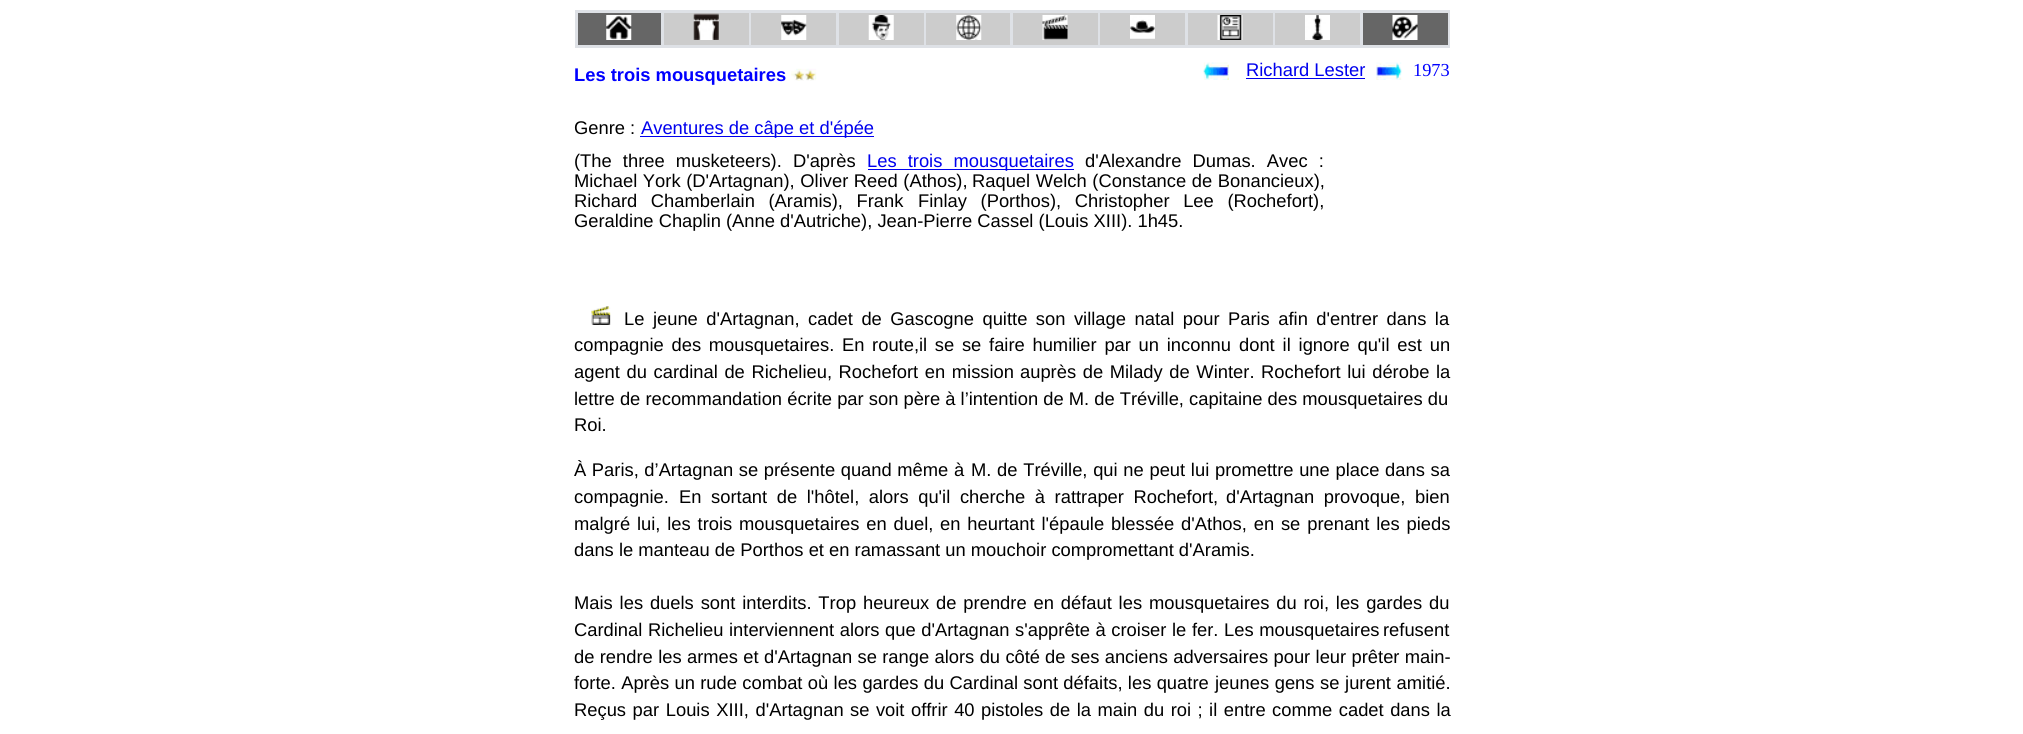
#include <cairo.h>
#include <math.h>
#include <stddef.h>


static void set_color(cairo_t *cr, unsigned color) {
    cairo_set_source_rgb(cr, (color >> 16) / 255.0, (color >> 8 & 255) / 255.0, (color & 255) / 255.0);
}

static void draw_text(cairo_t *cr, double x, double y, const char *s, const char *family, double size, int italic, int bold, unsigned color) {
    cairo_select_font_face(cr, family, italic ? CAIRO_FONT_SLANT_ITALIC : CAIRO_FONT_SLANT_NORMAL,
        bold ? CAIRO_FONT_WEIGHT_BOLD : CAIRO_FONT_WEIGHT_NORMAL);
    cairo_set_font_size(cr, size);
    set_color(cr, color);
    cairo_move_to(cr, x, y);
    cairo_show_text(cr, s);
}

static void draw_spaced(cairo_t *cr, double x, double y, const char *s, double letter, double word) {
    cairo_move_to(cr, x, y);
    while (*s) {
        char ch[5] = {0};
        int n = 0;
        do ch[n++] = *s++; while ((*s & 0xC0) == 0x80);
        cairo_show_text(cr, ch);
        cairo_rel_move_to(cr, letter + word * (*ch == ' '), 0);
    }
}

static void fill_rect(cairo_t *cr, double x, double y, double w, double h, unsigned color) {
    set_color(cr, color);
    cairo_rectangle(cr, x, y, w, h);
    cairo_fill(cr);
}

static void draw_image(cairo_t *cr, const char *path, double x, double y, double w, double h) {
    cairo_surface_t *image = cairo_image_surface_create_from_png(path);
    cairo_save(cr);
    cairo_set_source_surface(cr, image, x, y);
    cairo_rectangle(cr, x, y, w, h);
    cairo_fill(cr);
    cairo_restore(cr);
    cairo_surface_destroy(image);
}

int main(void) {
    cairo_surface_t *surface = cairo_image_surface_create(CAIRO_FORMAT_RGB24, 2023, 734);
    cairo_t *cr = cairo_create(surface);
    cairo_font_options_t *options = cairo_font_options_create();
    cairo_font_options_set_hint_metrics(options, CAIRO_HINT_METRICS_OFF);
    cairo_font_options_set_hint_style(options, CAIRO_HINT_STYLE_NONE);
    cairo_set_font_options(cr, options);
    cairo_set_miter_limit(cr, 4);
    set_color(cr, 0xFFFFFF);
    cairo_paint(cr);
    fill_rect(cr, 575, 10, 875, 38, 0xDEE1E6);
    fill_rect(cr, 578, 13, 83, 32, 0x666666);
    draw_image(cr, "assets/img1.png", 606, 15, 26, 25);
    fill_rect(cr, 664, 13, 85, 32, 0xCCCCCC);
    draw_image(cr, "assets/img2.png", 693, 13, 26, 27);
    fill_rect(cr, 751, 13, 85, 32, 0xCCCCCC);
    draw_image(cr, "assets/img3.png", 781, 15, 26, 25);
    fill_rect(cr, 839, 13, 85, 32, 0xCCCCCC);
    draw_image(cr, "assets/img4.png", 868, 15, 26, 25);
    fill_rect(cr, 926, 13, 84, 32, 0xCCCCCC);
    draw_image(cr, "assets/img5.png", 956, 15, 26, 25);
    fill_rect(cr, 1013, 13, 85, 32, 0xCCCCCC);
    draw_image(cr, "assets/img6.png", 1042, 15, 26, 25);
    fill_rect(cr, 1100, 13, 85, 32, 0xCCCCCC);
    draw_image(cr, "assets/img7.png", 1130, 15, 25, 24);
    fill_rect(cr, 1188, 13, 85, 32, 0xCCCCCC);
    draw_image(cr, "assets/img8.png", 1217, 15, 26, 25);
    fill_rect(cr, 1275, 13, 85, 32, 0xCCCCCC);
    draw_image(cr, "assets/img9.png", 1305, 15, 25, 25);
    fill_rect(cr, 1363, 13, 85, 32, 0x666666);
    draw_image(cr, "assets/img10.png", 1392, 15, 26, 25);
    draw_text(cr, 574, 81, "Les trois mousquetaires", "Liberation Sans", 18.35, 0, 1, 0x0000FF);
    draw_image(cr, "assets/img11.png", 791, 68, 26, 13);
    draw_image(cr, "assets/img12.png", 1203, 62, 26, 18);
    draw_text(cr, 1246, 76, "Richard Lester", "Liberation Sans", 18.35, 0, 0, 0x0000EE);
    fill_rect(cr, 1246, 78, 119, 1, 0x0000EE);
    draw_image(cr, "assets/img13.png", 1376, 62, 26, 18);
    draw_text(cr, 1413, 76, "1973", "Liberation Serif", 18.35, 0, 0, 0x0000FF);
    draw_text(cr, 574, 134, "Genre :", "Liberation Sans", 18.35, 0, 0, 0x000000);
    fill_rect(cr, 640, 136, 234, 1, 0x0000EE);
    draw_text(cr, 641, 134, "Aventures de câpe et d'épée", "Liberation Sans", 18.35, 0, 0, 0x0000EE);
    set_color(cr, 0x000000);
    draw_spaced(cr, 574, 167, "(The three musketeers). D'après", 0, 6);
    fill_rect(cr, 868, 169, 206, 1, 0x0000EE);
    draw_spaced(cr, 867, 167, "Les trois mousquetaires", 0, 6);
    set_color(cr, 0x000000);
    draw_spaced(cr, 1085, 167, "d'Alexandre Dumas. Avec :", 0, 6);
    draw_spaced(cr, 574, 187, "Michael York (D'Artagnan), Oliver Reed (Athos),", 0, 0.5);
    draw_spaced(cr, 972, 187, "Raquel Welch (Constance de Bonancieux),", 0, 0.5);
    draw_spaced(cr, 574, 207, "Richard Chamberlain (Aramis), Frank", 0, 8.5);
    draw_spaced(cr, 918, 207, "Finlay (Porthos), Christopher Lee (Rochefort),", 0, 8.5);
    draw_text(cr, 574, 227, "Geraldine Chaplin (Anne d'Autriche), Jean-Pierre Cassel (Louis XIII). 1h45.", "Liberation Sans", 18.35, 0, 0, 0x000000);
    draw_image(cr, "assets/img14.png", 591, 306, 20, 19);
    draw_spaced(cr, 624, 325, "Le jeune d'Artagnan,", 0, 3.4);
    draw_spaced(cr, 808, 325, "cadet de Gascogne quitte son village natal pour Paris afin d'entrer dans la", 0, 3.4);
    draw_spaced(cr, 574, 351, "compagnie des mousquetaires. En route,il se se faire humilier par un inconnu", 0, 2.6);
    draw_spaced(cr, 1239, 351, "dont il ignore qu'il est un", 0, 2.75);
    draw_spaced(cr, 574, 378, "agent du cardinal de Richelieu, Rochefort en mission", 0, 1.5);
    draw_spaced(cr, 1020, 378, "auprès de Milady de Winter. Rochefort lui dérobe la", 0, 1.5);
    draw_text(cr, 574, 405, "lettre de recommandation écrite par son père à l’intention de M. de Tréville, capitaine des mousquetaires du", "Liberation Sans", 18.35, 0, 0, 0x000000);
    draw_text(cr, 574, 431, "Roi.", "Liberation Sans", 18.35, 0, 0, 0x000000);
    draw_spaced(cr, 574, 476, "À Paris, d’Artagnan se présente quand même à", 0, 0.5);
    draw_spaced(cr, 971, 476, "M. de Tréville, qui ne peut lui promettre une place dans sa", 0, 0.6);
    draw_text(cr, 574, 503, "compagnie.", "Liberation Sans", 18.35, 0, 0, 0x000000);
    draw_spaced(cr, 679, 503, "En sortant de l'hôtel, alors qu'il cherche à rattraper Rochefort,", 0, 4.5);
    draw_spaced(cr, 1226, 503, "d'Artagnan provoque, bien", 0, 4.5);
    draw_spaced(cr, 574, 530, "malgré lui, les trois mousquetaires en duel,", 0, 1.75);
    draw_spaced(cr, 940, 530, "en heurtant l'épaule blessée d'Athos, en se prenant les pieds", 0, 1.75);
    draw_text(cr, 574, 556, "dans le manteau de Porthos et en ramassant un mouchoir compromettant d'Aramis.", "Liberation Sans", 18.35, 0, 0, 0x000000);
    draw_spaced(cr, 574, 609, "Mais les duels sont interdits. Trop heureux de prendre en défaut les", 0, 1.75);
    draw_spaced(cr, 1149, 609, "mousquetaires du roi, les gardes du", 0, 1.75);
    draw_spaced(cr, 574, 636, "Cardinal Richelieu interviennent alors", 0, 0.5);
    draw_spaced(cr, 885, 636, "que d'Artagnan s'apprête à croiser le fer. Les mousquetaires", 0, 0.5);
    draw_text(cr, 1383, 636, "refusent", "Liberation Sans", 18.35, 0, 0, 0x000000);
    draw_spaced(cr, 574, 663, "de rendre les armes et d'Artagnan se range alors du côté", 0, 0.25);
    draw_spaced(cr, 1045, 663, "de ses anciens adversaires pour leur prêter main-", 0, 0.25);
    draw_spaced(cr, 574, 689, "forte. Après un rude combat où les gardes du Cardinal sont défaits, les quatre", 0, 0.25);
    draw_spaced(cr, 1215, 689, "jeunes gens se jurent amitié.", 0, 0.5);
    draw_spaced(cr, 574, 716, "Reçus par Louis XIII, d'Artagnan", 0, 1.5);
    draw_spaced(cr, 850, 716, "se voit offrir 40 pistoles de la main du roi ; il entre comme cadet dans la", 0, 1.4);
    cairo_surface_write_to_png(surface, "output.png");
    cairo_font_options_destroy(options);
    cairo_destroy(cr);
    cairo_surface_destroy(surface);
    return 0;
}
